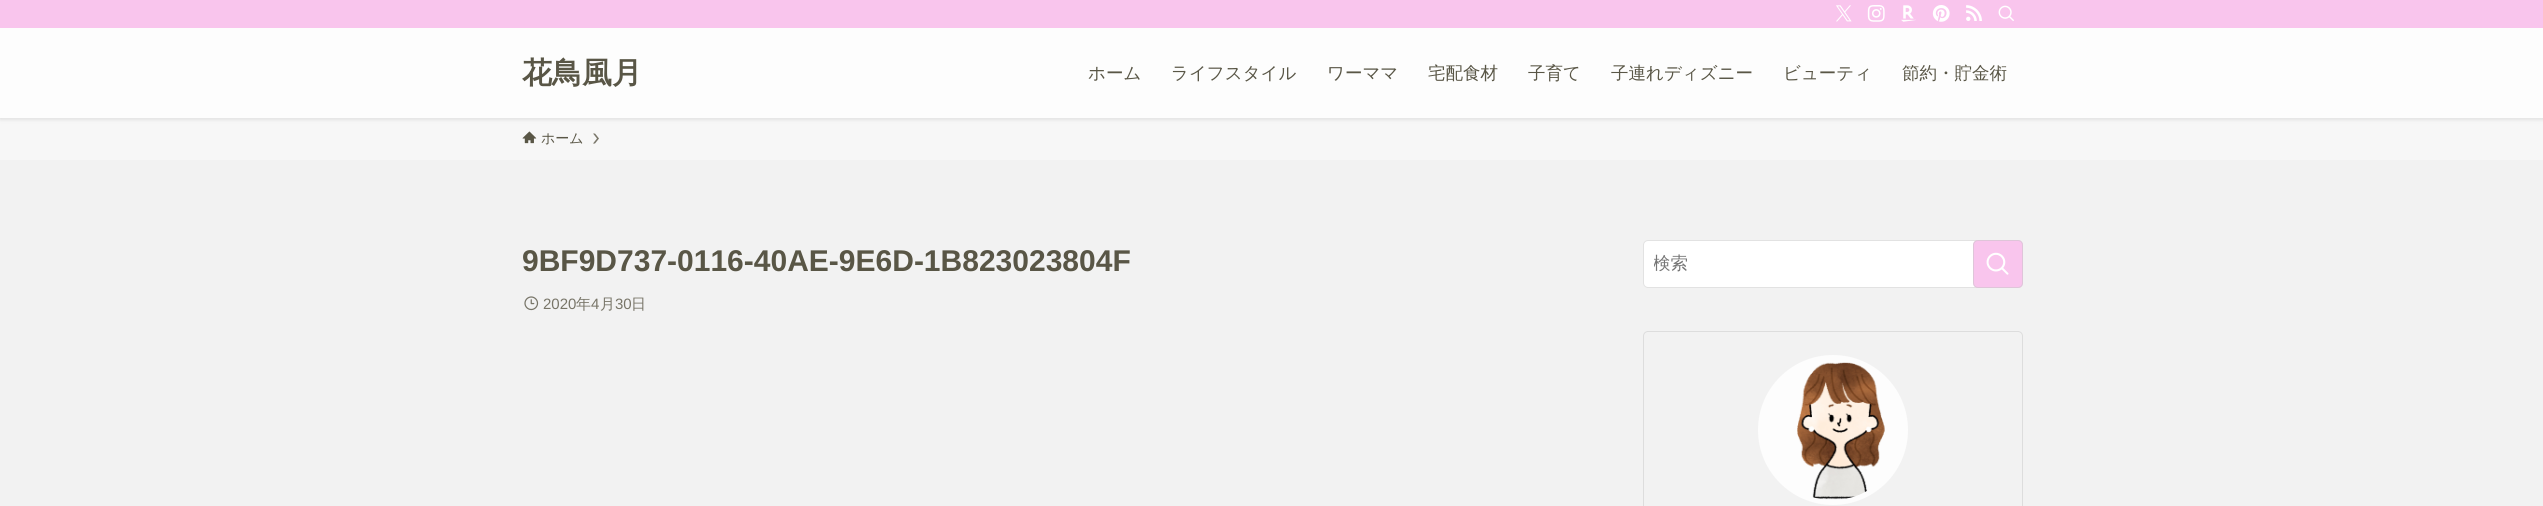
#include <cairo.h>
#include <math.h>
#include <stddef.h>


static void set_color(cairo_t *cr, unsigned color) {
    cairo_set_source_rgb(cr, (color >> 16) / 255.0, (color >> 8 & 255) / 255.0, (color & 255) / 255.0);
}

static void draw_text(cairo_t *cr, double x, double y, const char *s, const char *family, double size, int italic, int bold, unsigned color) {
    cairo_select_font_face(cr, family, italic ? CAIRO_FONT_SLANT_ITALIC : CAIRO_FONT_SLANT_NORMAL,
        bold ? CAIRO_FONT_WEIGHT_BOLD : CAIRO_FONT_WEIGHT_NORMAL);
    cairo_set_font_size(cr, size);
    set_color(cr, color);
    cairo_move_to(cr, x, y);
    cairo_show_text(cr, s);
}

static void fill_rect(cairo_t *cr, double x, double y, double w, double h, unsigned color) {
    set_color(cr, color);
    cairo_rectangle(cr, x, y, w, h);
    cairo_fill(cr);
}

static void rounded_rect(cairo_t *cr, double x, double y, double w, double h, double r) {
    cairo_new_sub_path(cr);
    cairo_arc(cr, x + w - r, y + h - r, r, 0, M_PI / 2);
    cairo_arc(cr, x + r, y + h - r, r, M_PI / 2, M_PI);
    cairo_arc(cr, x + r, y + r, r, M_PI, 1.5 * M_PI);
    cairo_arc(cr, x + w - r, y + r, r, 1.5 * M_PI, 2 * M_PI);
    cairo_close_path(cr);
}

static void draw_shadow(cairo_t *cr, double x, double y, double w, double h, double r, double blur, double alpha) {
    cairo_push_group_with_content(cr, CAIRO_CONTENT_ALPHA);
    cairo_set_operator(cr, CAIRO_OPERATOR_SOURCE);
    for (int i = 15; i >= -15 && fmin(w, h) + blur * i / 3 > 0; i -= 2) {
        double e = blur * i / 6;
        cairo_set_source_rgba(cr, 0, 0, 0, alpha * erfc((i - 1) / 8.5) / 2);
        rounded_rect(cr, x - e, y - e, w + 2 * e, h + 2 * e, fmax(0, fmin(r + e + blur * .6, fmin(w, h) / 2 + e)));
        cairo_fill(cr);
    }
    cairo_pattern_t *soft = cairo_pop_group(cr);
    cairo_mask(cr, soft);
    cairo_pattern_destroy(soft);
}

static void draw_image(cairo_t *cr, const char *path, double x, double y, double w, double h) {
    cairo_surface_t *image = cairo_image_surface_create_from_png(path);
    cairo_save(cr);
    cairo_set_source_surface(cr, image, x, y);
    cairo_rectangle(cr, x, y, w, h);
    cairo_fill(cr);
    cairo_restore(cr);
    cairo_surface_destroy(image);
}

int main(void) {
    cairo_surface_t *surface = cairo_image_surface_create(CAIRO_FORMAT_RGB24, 2543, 506);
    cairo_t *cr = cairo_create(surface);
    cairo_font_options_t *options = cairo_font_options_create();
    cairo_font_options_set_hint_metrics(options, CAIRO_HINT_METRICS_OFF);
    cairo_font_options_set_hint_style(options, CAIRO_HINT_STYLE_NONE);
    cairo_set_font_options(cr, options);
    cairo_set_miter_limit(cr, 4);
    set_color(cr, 0xF2F2F2);
    cairo_paint(cr);
    fill_rect(cr, 0, 118, 2543, 42, 0xF7F7F7);
    set_color(cr, 0x000000);
    draw_shadow(cr, 0, 1, 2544, 118, 0, 2.5, 0.12);
    fill_rect(cr, 0, 28, 2543, 90, 0xFDFDFD);
    fill_rect(cr, 0, 0, 2543, 28, 0xF9C5ED);
    draw_image(cr, "assets/img1.png", 1836, 5, 16, 17);
    draw_image(cr, "assets/img2.png", 1867, 5, 18, 17);
    draw_image(cr, "assets/img3.png", 1901, 5, 15, 17);
    draw_image(cr, "assets/img4.png", 1932, 5, 18, 17);
    draw_image(cr, "assets/img5.png", 1966, 5, 16, 16);
    draw_image(cr, "assets/img6.png", 1998, 5, 16, 16);
    draw_text(cr, 522, 83, "花鳥風月", "WenQuanYi Zen Hei", 30, 0, 1, 0x595646);
    draw_text(cr, 1088, 79, "ホーム", "WenQuanYi Zen Hei Medium", 17.5, 0, 0, 0x595646);
    draw_text(cr, 1171, 79, "ライフスタイル", "WenQuanYi Zen Hei Medium", 17.5, 0, 0, 0x595646);
    draw_text(cr, 1327, 79, "ワーママ", "WenQuanYi Zen Hei Medium", 17.5, 0, 0, 0x595646);
    draw_text(cr, 1428, 79, "宅配食材", "WenQuanYi Zen Hei Medium", 17.5, 0, 0, 0x595646);
    draw_text(cr, 1528, 79, "子育て", "WenQuanYi Zen Hei Medium", 17.5, 0, 0, 0x595646);
    draw_text(cr, 1611, 79, "子連れディズニー", "WenQuanYi Zen Hei Medium", 17.5, 0, 0, 0x595646);
    draw_text(cr, 1783, 79, "ビューティ", "WenQuanYi Zen Hei Medium", 17.5, 0, 0, 0x595646);
    draw_text(cr, 1902, 79, "節約・貯金術", "WenQuanYi Zen Hei Medium", 17.5, 0, 0, 0x595646);
    draw_image(cr, "assets/img7.png", 522, 131, 15, 13);
    draw_text(cr, 541, 143, "ホーム", "WenQuanYi Zen Hei Medium", 14, 0, 0, 0x595646);
    set_color(cr, 0x797669);
    cairo_new_path(cr);
    cairo_move_to(cr, 595, 133.5);
    cairo_line_to(cr, 593, 133.5);
    cairo_line_to(cr, 597, 138.5);
    cairo_line_to(cr, 593, 143.5);
    cairo_line_to(cr, 595, 143.5);
    cairo_line_to(cr, 599, 138.5);
    cairo_close_path(cr);
    cairo_fill(cr);
    draw_text(cr, 522, 271, "9BF9D737-0116-40AE-9E6D-1B823023804F", "Liberation Sans", 30, 0, 1, 0x595646);
    draw_image(cr, "assets/img8.png", 524, 296, 15, 15);
    draw_text(cr, 543, 309, "2020", "Liberation Sans", 15, 0, 0, 0x787568);
    draw_text(cr, 576, 309, "年", "WenQuanYi Zen Hei Medium", 15, 0, 0, 0x787568);
    draw_text(cr, 591, 309, "4", "Liberation Sans", 15, 0, 0, 0x787568);
    draw_text(cr, 600, 309, "月", "WenQuanYi Zen Hei Medium", 15, 0, 0, 0x787568);
    draw_text(cr, 615, 309, "30", "Liberation Sans", 15, 0, 0, 0x787568);
    draw_text(cr, 631, 309, "日", "WenQuanYi Zen Hei Medium", 15, 0, 0, 0x787568);
    set_color(cr, 0xFFFFFF);
    rounded_rect(cr, 1643, 240, 380, 48, 5);
    cairo_fill(cr);
    rounded_rect(cr, 1643.5, 240.5, 379, 47, 4.5);
    cairo_set_source_rgba(cr, 0.78, 0.78, 0.78, 0.5);
    cairo_set_line_width(cr, 1);
    cairo_stroke(cr);
    cairo_save(cr);
    cairo_rectangle(cr, 1654, 254, 312, 22);
    cairo_clip(cr);
    draw_text(cr, 1653, 269, "検索", "WenQuanYi Zen Hei Medium", 17.5, 0, 0, 0x757575);
    cairo_restore(cr);
    set_color(cr, 0xF9C5ED);
    rounded_rect(cr, 1973, 240, 50, 48, 5);
    cairo_fill(cr);
    rounded_rect(cr, 1973.5, 240.5, 49, 47, 4.5);
    cairo_set_source_rgba(cr, 0.78, 0.78, 0.78, 0.5);
    cairo_stroke(cr);
    draw_image(cr, "assets/img9.png", 1986, 252, 23, 23);
    rounded_rect(cr, 1643.5, 331.5, 379, 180, 4.5);
    set_color(cr, 0xDDDDDD);
    cairo_stroke(cr);
    set_color(cr, 0xFDFDFD);
    cairo_arc(cr, 1833, 430, 72.5, 0, 2 * M_PI);
    cairo_fill_preserve(cr);
    cairo_set_line_width(cr, 5);
    cairo_stroke(cr);
    draw_image(cr, "assets/img10.png", 1797, 362, 88, 138);
    cairo_surface_write_to_png(surface, "output.png");
    cairo_font_options_destroy(options);
    cairo_destroy(cr);
    cairo_surface_destroy(surface);
    return 0;
}
